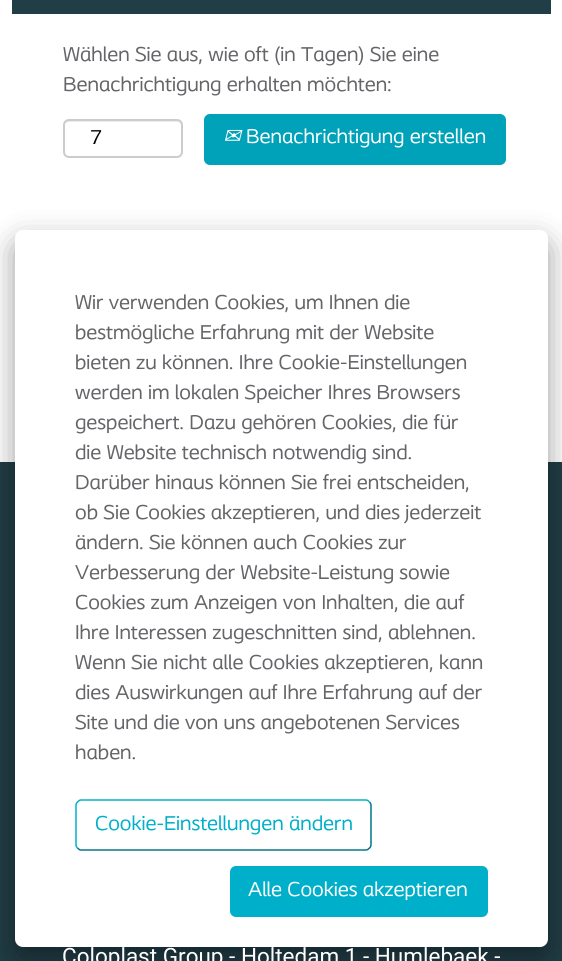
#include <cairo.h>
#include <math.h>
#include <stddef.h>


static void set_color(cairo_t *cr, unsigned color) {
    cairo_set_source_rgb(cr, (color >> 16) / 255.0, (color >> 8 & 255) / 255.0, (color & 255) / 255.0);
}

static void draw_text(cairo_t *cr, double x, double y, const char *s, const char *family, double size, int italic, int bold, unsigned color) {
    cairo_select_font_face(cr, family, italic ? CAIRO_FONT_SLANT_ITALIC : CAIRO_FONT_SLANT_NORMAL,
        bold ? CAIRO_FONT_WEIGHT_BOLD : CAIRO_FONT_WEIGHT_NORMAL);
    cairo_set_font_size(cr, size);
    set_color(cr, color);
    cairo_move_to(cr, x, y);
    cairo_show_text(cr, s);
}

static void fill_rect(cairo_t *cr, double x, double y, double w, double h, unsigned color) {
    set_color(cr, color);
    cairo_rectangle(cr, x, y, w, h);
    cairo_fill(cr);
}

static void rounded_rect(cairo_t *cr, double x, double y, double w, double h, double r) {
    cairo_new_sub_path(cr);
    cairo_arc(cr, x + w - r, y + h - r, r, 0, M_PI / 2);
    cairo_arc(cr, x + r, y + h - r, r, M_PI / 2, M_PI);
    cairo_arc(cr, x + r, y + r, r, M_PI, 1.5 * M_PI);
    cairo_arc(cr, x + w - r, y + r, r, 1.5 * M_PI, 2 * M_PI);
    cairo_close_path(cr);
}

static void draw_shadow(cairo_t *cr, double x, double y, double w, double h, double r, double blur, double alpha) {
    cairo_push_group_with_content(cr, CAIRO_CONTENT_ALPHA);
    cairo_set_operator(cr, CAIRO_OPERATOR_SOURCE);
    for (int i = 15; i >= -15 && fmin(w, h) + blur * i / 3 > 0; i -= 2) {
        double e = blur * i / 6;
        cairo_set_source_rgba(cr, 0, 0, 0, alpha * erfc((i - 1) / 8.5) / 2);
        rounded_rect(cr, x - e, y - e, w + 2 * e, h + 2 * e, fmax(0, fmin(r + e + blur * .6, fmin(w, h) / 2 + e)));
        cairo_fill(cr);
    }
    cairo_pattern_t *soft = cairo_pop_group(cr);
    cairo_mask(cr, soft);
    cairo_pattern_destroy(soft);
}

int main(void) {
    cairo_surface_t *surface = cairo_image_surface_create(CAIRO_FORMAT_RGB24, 562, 961);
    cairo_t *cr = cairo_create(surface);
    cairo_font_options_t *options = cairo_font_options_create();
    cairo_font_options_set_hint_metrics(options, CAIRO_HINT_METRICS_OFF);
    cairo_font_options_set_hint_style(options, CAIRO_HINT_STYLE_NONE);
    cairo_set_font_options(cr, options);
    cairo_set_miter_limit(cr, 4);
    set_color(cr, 0xFFFFFF);
    cairo_paint(cr);
    fill_rect(cr, 12, 0, 539, 14, 0x213D46);
    draw_text(cr, 63, 61, "Wählen Sie aus, wie oft (in Tagen) Sie eine", "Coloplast", 21, 0, 0, 0x646568);
    draw_text(cr, 63, 91, "Benachrichtigung erhalten möchten:", "Coloplast", 21, 0, 0, 0x646568);
    set_color(cr, 0xECECEC);
    cairo_new_path(cr);
    cairo_move_to(cr, 69, 122);
    cairo_line_to(cr, 177, 122);
    cairo_curve_to(cr, 179, 122, 182, 124, 182, 126);
    cairo_line_to(cr, 182, 125);
    cairo_curve_to(cr, 182, 122, 180, 120, 177, 120);
    cairo_line_to(cr, 70, 120);
    cairo_curve_to(cr, 68, 120, 66, 122, 65, 124);
    cairo_curve_to(cr, 66, 123, 68, 122, 69, 122);
    cairo_close_path(cr);
    cairo_fill(cr);
    rounded_rect(cr, 64, 120, 118, 37, 5);
    set_color(cr, 0xCCCCCC);
    cairo_stroke(cr);
    draw_text(cr, 90, 144, "7", "Coloplast", 21, 0, 0, 0x000000);
    set_color(cr, 0x00A2BA);
    rounded_rect(cr, 204, 114, 302, 51, 6);
    cairo_fill(cr);
    draw_text(cr, 223, 143, "✉", "DejaVu Sans", 21, 1, 0, 0xFFFFFF);
    draw_text(cr, 246, 143, "Benachrichtigung erstellen", "Coloplast", 21, 0, 0, 0xFFFFFF);
    fill_rect(cr, 0, 462, 562, 499, 0x213D46);
    set_color(cr, 0x000000);
    draw_shadow(cr, 15, 242, 533, 717, 8, 15, 0.39);
    set_color(cr, 0xFFFFFF);
    rounded_rect(cr, 15, 230, 533, 717, 8);
    cairo_fill(cr);
    draw_text(cr, 75, 309, "Wir verwenden Cookies, um Ihnen die", "Coloplast", 21, 0, 0, 0x646568);
    draw_text(cr, 75, 339, "bestmögliche Erfahrung mit der Website", "Coloplast", 21, 0, 0, 0x646568);
    draw_text(cr, 75, 369, "bieten zu können. Ihre Cookie-Einstellungen", "Coloplast", 21, 0, 0, 0x646568);
    draw_text(cr, 75, 399, "werden im lokalen Speicher Ihres Browsers", "Coloplast", 21, 0, 0, 0x646568);
    draw_text(cr, 75, 429, "gespeichert. Dazu gehören Cookies, die für", "Coloplast", 21, 0, 0, 0x646568);
    draw_text(cr, 75, 459, "die Website technisch notwendig sind.", "Coloplast", 21, 0, 0, 0x646568);
    draw_text(cr, 75, 489, "Darüber hinaus können Sie frei entscheiden,", "Coloplast", 21, 0, 0, 0x646568);
    draw_text(cr, 75, 519, "ob Sie Cookies akzeptieren, und dies jederzeit", "Coloplast", 21, 0, 0, 0x646568);
    draw_text(cr, 75, 549, "ändern. Sie können auch Cookies zur", "Coloplast", 21, 0, 0, 0x646568);
    draw_text(cr, 75, 579, "Verbesserung der Website-Leistung sowie", "Coloplast", 21, 0, 0, 0x646568);
    draw_text(cr, 75, 609, "Cookies zum Anzeigen von Inhalten, die auf", "Coloplast", 21, 0, 0, 0x646568);
    draw_text(cr, 75, 639, "Ihre Interessen zugeschnitten sind, ablehnen.", "Coloplast", 21, 0, 0, 0x646568);
    draw_text(cr, 75, 669, "Wenn Sie nicht alle Cookies akzeptieren, kann", "Coloplast", 21, 0, 0, 0x646568);
    draw_text(cr, 75, 699, "dies Auswirkungen auf Ihre Erfahrung auf der", "Coloplast", 21, 0, 0, 0x646568);
    draw_text(cr, 75, 729, "Site und die von uns angebotenen Services", "Coloplast", 21, 0, 0, 0x646568);
    draw_text(cr, 75, 759, "haben.", "Coloplast", 21, 0, 0, 0x646568);
    cairo_new_path(cr);
    cairo_move_to(cr, 369.5, 802);
    cairo_curve_to(cr, 370.5, 803, 371, 804, 371, 805.5);
    cairo_line_to(cr, 371, 844.5);
    cairo_curve_to(cr, 371, 846, 370.5, 847, 369.5, 848);
    cairo_curve_to(cr, 368.5, 849, 367.5, 850, 366, 850);
    cairo_line_to(cr, 81, 850);
    cairo_curve_to(cr, 79.5, 850, 78.5, 849, 77.5, 848);
    set_color(cr, 0x007587);
    cairo_set_line_width(cr, 1.5);
    cairo_stroke(cr);
    cairo_new_path(cr);
    cairo_move_to(cr, 77.5, 848);
    cairo_curve_to(cr, 76.5, 847, 76, 846, 76, 844.5);
    cairo_line_to(cr, 76, 805.5);
    cairo_curve_to(cr, 76, 804, 76.5, 803, 77.5, 802);
    cairo_curve_to(cr, 78.5, 801, 79.5, 800, 81, 800);
    cairo_line_to(cr, 366, 800);
    cairo_curve_to(cr, 367.5, 800, 368.5, 801, 369.5, 802);
    set_color(cr, 0x00B0CA);
    cairo_stroke(cr);
    draw_text(cr, 95, 830, "Cookie-Einstellungen ändern", "Coloplast", 21, 0, 0, 0x00B0CA);
    rounded_rect(cr, 230, 866, 258, 51, 6);
    cairo_fill(cr);
    draw_text(cr, 248, 896, "Alle Cookies akzeptieren", "Coloplast", 21, 0, 0, 0xFFFFFF);
    draw_text(cr, 62, 964, "Coloplast Group - Holtedam 1 - Humlebaek -", "Roboto", 22.5, 0, 0, 0xFFFFFF);
    cairo_surface_write_to_png(surface, "output.png");
    cairo_font_options_destroy(options);
    cairo_destroy(cr);
    cairo_surface_destroy(surface);
    return 0;
}
